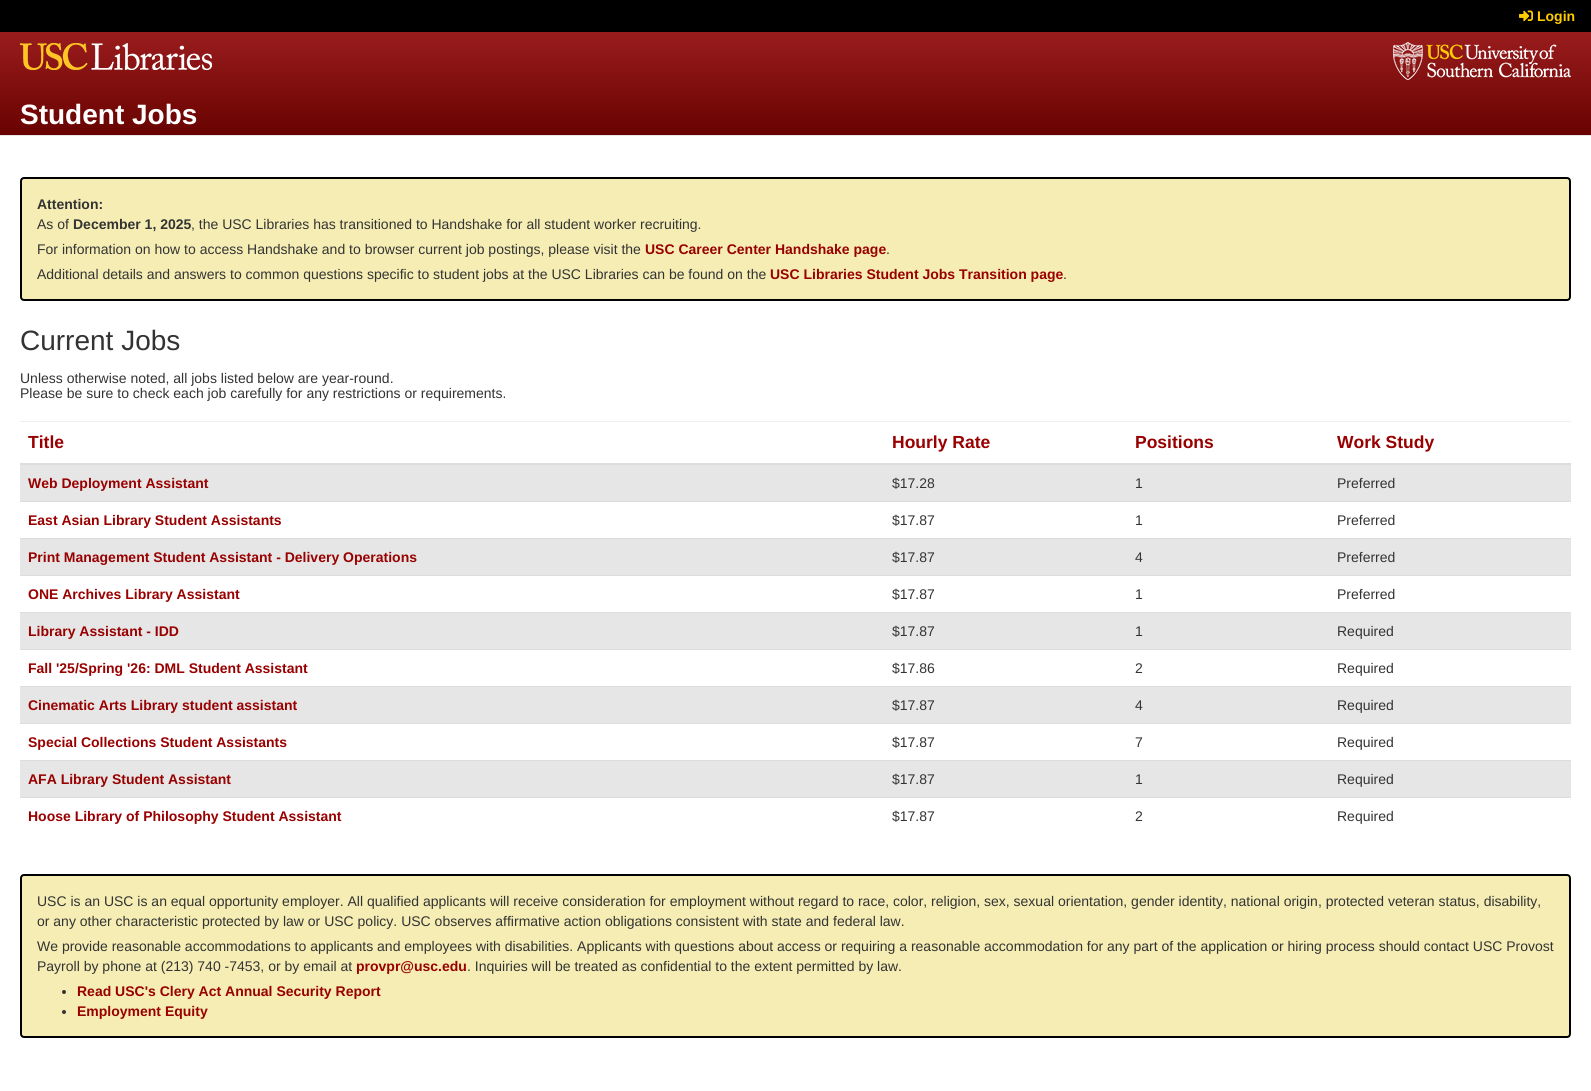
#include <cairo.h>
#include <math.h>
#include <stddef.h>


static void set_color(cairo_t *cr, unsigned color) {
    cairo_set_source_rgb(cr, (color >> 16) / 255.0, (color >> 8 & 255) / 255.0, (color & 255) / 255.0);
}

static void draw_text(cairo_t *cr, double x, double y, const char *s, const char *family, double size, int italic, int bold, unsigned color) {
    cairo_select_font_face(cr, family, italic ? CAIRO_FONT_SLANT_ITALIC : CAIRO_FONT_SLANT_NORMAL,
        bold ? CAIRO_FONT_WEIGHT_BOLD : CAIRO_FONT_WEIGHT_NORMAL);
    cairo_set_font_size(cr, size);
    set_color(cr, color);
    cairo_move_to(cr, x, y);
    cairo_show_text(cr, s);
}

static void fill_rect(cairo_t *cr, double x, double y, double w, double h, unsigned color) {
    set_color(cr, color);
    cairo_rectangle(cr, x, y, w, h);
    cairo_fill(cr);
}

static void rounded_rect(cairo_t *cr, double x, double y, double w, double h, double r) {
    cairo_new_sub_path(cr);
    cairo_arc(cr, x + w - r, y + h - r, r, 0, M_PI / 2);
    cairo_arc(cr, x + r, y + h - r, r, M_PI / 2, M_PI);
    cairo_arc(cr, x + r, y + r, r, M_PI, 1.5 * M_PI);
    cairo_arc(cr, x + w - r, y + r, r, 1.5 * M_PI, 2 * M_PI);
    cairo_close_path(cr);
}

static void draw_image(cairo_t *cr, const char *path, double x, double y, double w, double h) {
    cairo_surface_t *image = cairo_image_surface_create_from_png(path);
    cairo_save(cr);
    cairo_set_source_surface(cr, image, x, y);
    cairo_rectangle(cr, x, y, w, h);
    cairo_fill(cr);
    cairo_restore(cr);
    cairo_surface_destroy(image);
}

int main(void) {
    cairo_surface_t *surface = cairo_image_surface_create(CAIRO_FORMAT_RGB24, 1591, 1091);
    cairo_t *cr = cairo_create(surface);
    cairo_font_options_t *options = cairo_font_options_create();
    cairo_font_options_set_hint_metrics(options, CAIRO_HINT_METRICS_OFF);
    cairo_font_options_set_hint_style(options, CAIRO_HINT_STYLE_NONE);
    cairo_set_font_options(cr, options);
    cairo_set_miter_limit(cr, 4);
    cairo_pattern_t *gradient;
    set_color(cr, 0xFFFFFF);
    cairo_paint(cr);
    fill_rect(cr, 0, 0, 1591, 32, 0x000000);
    draw_image(cr, "assets/img1.png", 1519, 10, 14, 12);
    draw_text(cr, 1537, 21, "Login", "Liberation Sans", 14, 0, 1, 0xFFCC00);
    gradient = cairo_pattern_create_linear(796, 32, 796, 135);
    cairo_pattern_add_color_stop_rgba(gradient, 0, 0.604, 0.11, 0.114, 1);
    cairo_pattern_add_color_stop_rgba(gradient, 1, 0.408, 0.012, 0.004, 1);
    cairo_set_source(cr, gradient);
    cairo_pattern_destroy(gradient);
    cairo_rectangle(cr, 0, 32, 1591, 103);
    cairo_fill(cr);
    fill_rect(cr, 0, 135, 1591, 1, 0xE7E7E7);
    draw_image(cr, "assets/img2.png", 20, 43, 192, 27);
    draw_image(cr, "assets/img3.png", 1393, 42, 178, 38);
    draw_text(cr, 20, 124, "Student Jobs", "Liberation Sans", 28, 0, 1, 0xFFFFFF);
    set_color(cr, 0xF5EDB4);
    rounded_rect(cr, 21, 178, 1549, 122, 3);
    cairo_fill_preserve(cr);
    set_color(cr, 0x000000);
    cairo_stroke(cr);
    draw_text(cr, 37, 209, "Attention:", "Liberation Sans", 14, 0, 1, 0x333333);
    draw_text(cr, 37, 229, "As of", "Liberation Sans", 14, 0, 0, 0x333333);
    draw_text(cr, 73, 229, "December 1, 2025", "Liberation Sans", 14, 0, 1, 0x333333);
    draw_text(cr, 191, 229, ", the USC Libraries has transitioned to Handshake for all student worker recruiting.", "Liberation Sans", 14, 0, 0, 0x333333);
    draw_text(cr, 37, 254, "For information on how to access Handshake and to browser current job postings, please visit the", "Liberation Sans", 14, 0, 0, 0x333333);
    draw_text(cr, 645, 254, "USC Career Center Handshake page", "Liberation Sans", 14, 0, 1, 0x990000);
    draw_text(cr, 886, 254, ".", "Liberation Sans", 14, 0, 0, 0x333333);
    draw_text(cr, 37, 279, "Additional details and answers to common questions specific to student jobs at the USC Libraries can be found on the", "Liberation Sans", 14, 0, 0, 0x333333);
    draw_text(cr, 770, 279, "USC Libraries Student Jobs Transition page", "Liberation Sans", 14, 0, 1, 0x990000);
    draw_text(cr, 1063, 279, ".", "Liberation Sans", 14, 0, 0, 0x333333);
    fill_rect(cr, 20, 421, 1551, 1, 0xEEEEEE);
    draw_text(cr, 20, 350, "Current Jobs", "Liberation Sans", 28, 0, 0, 0x333333);
    draw_text(cr, 20, 383, "Unless otherwise noted, all jobs listed below are year-round.", "Liberation Sans", 14, 0, 0, 0x333333);
    draw_text(cr, 20, 398, "Please be sure to check each job carefully for any restrictions or requirements.", "Liberation Sans", 14, 0, 0, 0x333333);
    draw_text(cr, 28, 448, "Title", "Liberation Sans", 17.5, 0, 1, 0x990000);
    draw_text(cr, 892, 448, "Hourly Rate", "Liberation Sans", 17.5, 0, 1, 0x990000);
    draw_text(cr, 1135, 448, "Positions", "Liberation Sans", 17.5, 0, 1, 0x990000);
    fill_rect(cr, 20, 463, 1551, 2, 0xDDDDDD);
    draw_text(cr, 1337, 448, "Work Study", "Liberation Sans", 17.5, 0, 1, 0x990000);
    fill_rect(cr, 20, 465, 1551, 36, 0xE6E6E6);
    draw_text(cr, 28, 488, "Web Deployment Assistant", "Liberation Sans", 14, 0, 1, 0x990000);
    draw_text(cr, 892, 488, "$17.28", "Liberation Sans", 14, 0, 0, 0x333333);
    draw_text(cr, 1135, 488, "1", "Liberation Sans", 14, 0, 0, 0x333333);
    draw_text(cr, 1337, 488, "Preferred", "Liberation Sans", 14, 0, 0, 0x333333);
    draw_text(cr, 28, 525, "East Asian Library Student Assistants", "Liberation Sans", 14, 0, 1, 0x990000);
    draw_text(cr, 892, 525, "$17.87", "Liberation Sans", 14, 0, 0, 0x333333);
    draw_text(cr, 1135, 525, "1", "Liberation Sans", 14, 0, 0, 0x333333);
    fill_rect(cr, 20, 501, 1551, 1, 0xDDDDDD);
    draw_text(cr, 1337, 525, "Preferred", "Liberation Sans", 14, 0, 0, 0x333333);
    fill_rect(cr, 20, 539, 1551, 36, 0xE6E6E6);
    draw_text(cr, 28, 562, "Print Management Student Assistant - Delivery Operations", "Liberation Sans", 14, 0, 1, 0x990000);
    draw_text(cr, 892, 562, "$17.87", "Liberation Sans", 14, 0, 0, 0x333333);
    draw_text(cr, 1135, 562, "4", "Liberation Sans", 14, 0, 0, 0x333333);
    fill_rect(cr, 20, 538, 1551, 1, 0xDDDDDD);
    draw_text(cr, 1337, 562, "Preferred", "Liberation Sans", 14, 0, 0, 0x333333);
    draw_text(cr, 28, 599, "ONE Archives Library Assistant", "Liberation Sans", 14, 0, 1, 0x990000);
    draw_text(cr, 892, 599, "$17.87", "Liberation Sans", 14, 0, 0, 0x333333);
    draw_text(cr, 1135, 599, "1", "Liberation Sans", 14, 0, 0, 0x333333);
    fill_rect(cr, 20, 575, 1551, 1, 0xDDDDDD);
    draw_text(cr, 1337, 599, "Preferred", "Liberation Sans", 14, 0, 0, 0x333333);
    fill_rect(cr, 20, 613, 1551, 36, 0xE6E6E6);
    draw_text(cr, 28, 636, "Library Assistant - IDD", "Liberation Sans", 14, 0, 1, 0x990000);
    draw_text(cr, 892, 636, "$17.87", "Liberation Sans", 14, 0, 0, 0x333333);
    draw_text(cr, 1135, 636, "1", "Liberation Sans", 14, 0, 0, 0x333333);
    fill_rect(cr, 20, 612, 1551, 1, 0xDDDDDD);
    draw_text(cr, 1337, 636, "Required", "Liberation Sans", 14, 0, 0, 0x333333);
    draw_text(cr, 28, 673, "Fall '25/Spring '26: DML Student Assistant", "Liberation Sans", 14, 0, 1, 0x990000);
    draw_text(cr, 892, 673, "$17.86", "Liberation Sans", 14, 0, 0, 0x333333);
    draw_text(cr, 1135, 673, "2", "Liberation Sans", 14, 0, 0, 0x333333);
    fill_rect(cr, 20, 649, 1551, 1, 0xDDDDDD);
    draw_text(cr, 1337, 673, "Required", "Liberation Sans", 14, 0, 0, 0x333333);
    fill_rect(cr, 20, 687, 1551, 36, 0xE6E6E6);
    draw_text(cr, 28, 710, "Cinematic Arts Library student assistant", "Liberation Sans", 14, 0, 1, 0x990000);
    draw_text(cr, 892, 710, "$17.87", "Liberation Sans", 14, 0, 0, 0x333333);
    draw_text(cr, 1135, 710, "4", "Liberation Sans", 14, 0, 0, 0x333333);
    fill_rect(cr, 20, 686, 1551, 1, 0xDDDDDD);
    draw_text(cr, 1337, 710, "Required", "Liberation Sans", 14, 0, 0, 0x333333);
    draw_text(cr, 28, 747, "Special Collections Student Assistants", "Liberation Sans", 14, 0, 1, 0x990000);
    draw_text(cr, 892, 747, "$17.87", "Liberation Sans", 14, 0, 0, 0x333333);
    draw_text(cr, 1135, 747, "7", "Liberation Sans", 14, 0, 0, 0x333333);
    fill_rect(cr, 20, 723, 1551, 1, 0xDDDDDD);
    draw_text(cr, 1337, 747, "Required", "Liberation Sans", 14, 0, 0, 0x333333);
    fill_rect(cr, 20, 761, 1551, 36, 0xE6E6E6);
    draw_text(cr, 28, 784, "AFA Library Student Assistant", "Liberation Sans", 14, 0, 1, 0x990000);
    draw_text(cr, 892, 784, "$17.87", "Liberation Sans", 14, 0, 0, 0x333333);
    draw_text(cr, 1135, 784, "1", "Liberation Sans", 14, 0, 0, 0x333333);
    fill_rect(cr, 20, 760, 1551, 1, 0xDDDDDD);
    draw_text(cr, 1337, 784, "Required", "Liberation Sans", 14, 0, 0, 0x333333);
    draw_text(cr, 28, 821, "Hoose Library of Philosophy Student Assistant", "Liberation Sans", 14, 0, 1, 0x990000);
    draw_text(cr, 892, 821, "$17.87", "Liberation Sans", 14, 0, 0, 0x333333);
    draw_text(cr, 1135, 821, "2", "Liberation Sans", 14, 0, 0, 0x333333);
    fill_rect(cr, 20, 797, 1551, 1, 0xDDDDDD);
    draw_text(cr, 1337, 821, "Required", "Liberation Sans", 14, 0, 0, 0x333333);
    set_color(cr, 0xF5EDB4);
    rounded_rect(cr, 21, 875, 1549, 162, 3);
    cairo_fill_preserve(cr);
    set_color(cr, 0x000000);
    cairo_stroke(cr);
    draw_text(cr, 37, 906, "USC is an USC is an equal opportunity employer. All qualified applicants will receive consideration for employment without regard to race, color, religion, sex, sexual orientation, gender identity, national origin, protected veteran status, disability,", "Liberation Sans", 14, 0, 0, 0x333333);
    draw_text(cr, 37, 926, "or any other characteristic protected by law or USC policy. USC observes affirmative action obligations consistent with state and federal law.", "Liberation Sans", 14, 0, 0, 0x333333);
    draw_text(cr, 37, 951, "We provide reasonable accommodations to applicants and employees with disabilities. Applicants with questions about access or requiring a reasonable accommodation for any part of the application or hiring process should contact USC Provost", "Liberation Sans", 14, 0, 0, 0x333333);
    draw_text(cr, 37, 971, "Payroll by phone at (213) 740 -7453, or by email at", "Liberation Sans", 14, 0, 0, 0x333333);
    draw_text(cr, 356, 971, "provpr@usc.edu", "Liberation Sans", 14, 0, 1, 0x990000);
    draw_text(cr, 467, 971, ". Inquiries will be treated as confidential to the extent permitted by law.", "Liberation Sans", 14, 0, 0, 0x333333);
    cairo_new_path(cr);
    cairo_arc(cr, 64, 992, 2, 0, 2 * M_PI);
    cairo_fill(cr);
    draw_text(cr, 77, 996, "Read USC's Clery Act Annual Security Report", "Liberation Sans", 14, 0, 1, 0x990000);
    set_color(cr, 0x333333);
    cairo_new_path(cr);
    cairo_arc(cr, 64, 1012, 2, 0, 2 * M_PI);
    cairo_fill(cr);
    draw_text(cr, 77, 1016, "Employment Equity", "Liberation Sans", 14, 0, 1, 0x990000);
    cairo_surface_write_to_png(surface, "output.png");
    cairo_font_options_destroy(options);
    cairo_destroy(cr);
    cairo_surface_destroy(surface);
    return 0;
}
